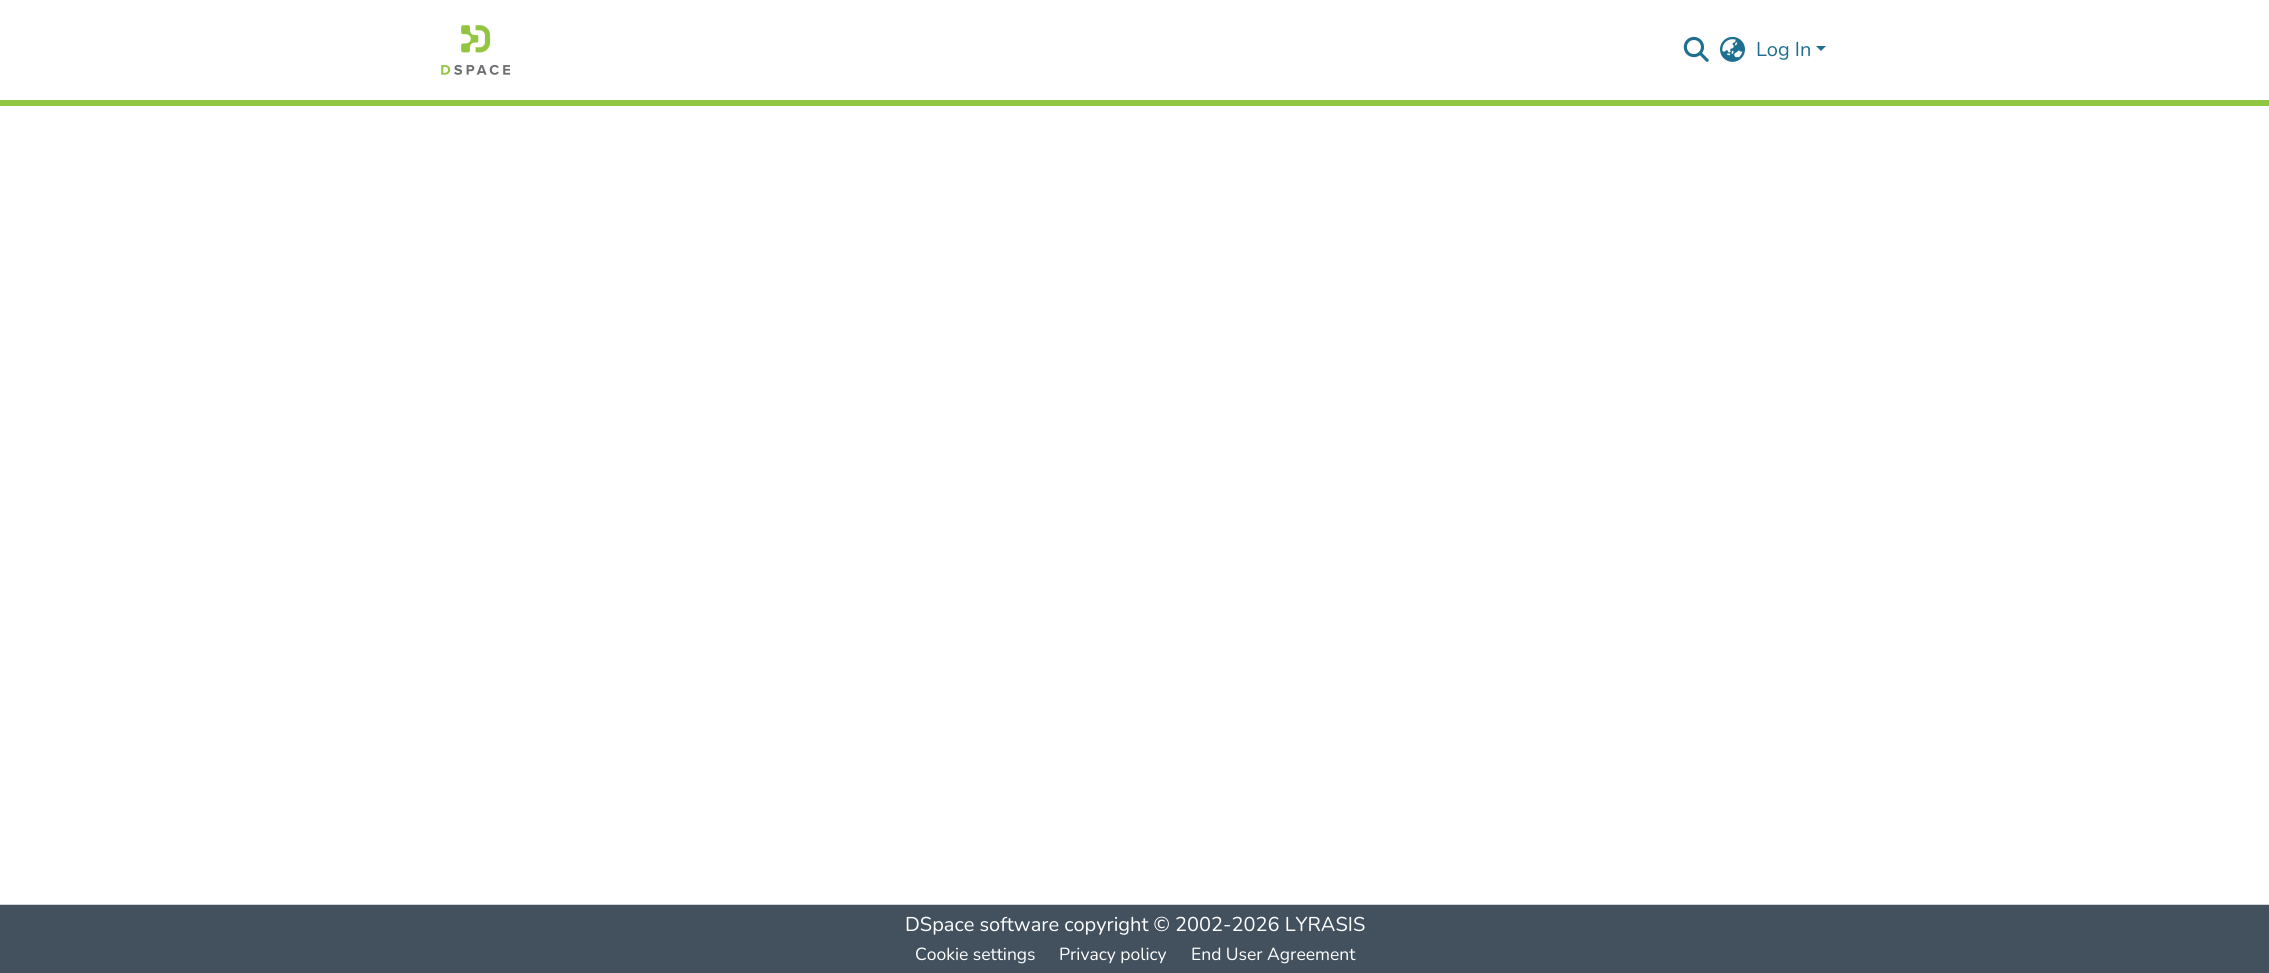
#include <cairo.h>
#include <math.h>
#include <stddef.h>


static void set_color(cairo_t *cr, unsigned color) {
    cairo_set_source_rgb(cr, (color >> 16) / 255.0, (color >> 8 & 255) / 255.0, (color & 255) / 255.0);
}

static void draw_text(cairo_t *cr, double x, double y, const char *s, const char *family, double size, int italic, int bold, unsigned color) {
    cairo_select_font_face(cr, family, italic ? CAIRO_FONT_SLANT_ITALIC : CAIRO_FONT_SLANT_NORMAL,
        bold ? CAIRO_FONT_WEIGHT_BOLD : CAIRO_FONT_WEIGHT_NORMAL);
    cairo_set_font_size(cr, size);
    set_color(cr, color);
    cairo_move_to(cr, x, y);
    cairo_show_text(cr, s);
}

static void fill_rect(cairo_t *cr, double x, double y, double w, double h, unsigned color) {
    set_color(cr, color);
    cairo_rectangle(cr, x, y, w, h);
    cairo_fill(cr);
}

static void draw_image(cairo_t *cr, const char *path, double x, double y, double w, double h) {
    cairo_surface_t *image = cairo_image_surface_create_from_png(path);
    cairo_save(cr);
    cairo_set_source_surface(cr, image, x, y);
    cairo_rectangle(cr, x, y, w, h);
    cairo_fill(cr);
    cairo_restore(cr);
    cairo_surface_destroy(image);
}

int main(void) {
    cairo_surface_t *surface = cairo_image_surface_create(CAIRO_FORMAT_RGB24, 2269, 973);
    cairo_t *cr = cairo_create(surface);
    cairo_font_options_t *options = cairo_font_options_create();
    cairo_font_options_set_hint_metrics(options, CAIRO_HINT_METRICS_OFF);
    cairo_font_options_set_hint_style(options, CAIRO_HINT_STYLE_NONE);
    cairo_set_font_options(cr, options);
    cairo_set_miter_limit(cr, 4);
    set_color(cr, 0xFFFFFF);
    cairo_paint(cr);
    fill_rect(cr, 0, 100, 2269, 6, 0x92C642);
    draw_image(cr, "assets/img1.png", 441, 25, 69, 50);
    draw_image(cr, "assets/img2.png", 1683, 36, 26, 26);
    draw_image(cr, "assets/img3.png", 1720, 36, 25, 26);
    draw_text(cr, 1756, 56, "Log In", "Nunito", 20, 0, 0, 0x1E6F90);
    cairo_new_path(cr);
    cairo_move_to(cr, 1816, 46);
    cairo_line_to(cr, 1826, 46);
    cairo_line_to(cr, 1821, 51);
    cairo_close_path(cr);
    cairo_fill(cr);
    fill_rect(cr, 0, 905, 2269, 68, 0x43515F);
    fill_rect(cr, 0, 904, 2269, 1, 0xCED4DA);
    draw_text(cr, 905, 931, "DSpace software copyright © 2002-2026 LYRASIS", "Nunito", 20, 0, 0, 0xFFFFFF);
    draw_text(cr, 915, 960, "Cookie settings", "Nunito", 17.5, 0, 0, 0xFFFFFF);
    fill_rect(cr, 1046, 940, 1, 29, 0x495057);
    draw_text(cr, 1059, 960, "Privacy policy", "Nunito", 17.5, 0, 0, 0xFFFFFF);
    fill_rect(cr, 1178, 940, 1, 29, 0x495057);
    draw_text(cr, 1191, 960, "End User Agreement", "Nunito", 17.5, 0, 0, 0xFFFFFF);
    cairo_surface_write_to_png(surface, "output.png");
    cairo_font_options_destroy(options);
    cairo_destroy(cr);
    cairo_surface_destroy(surface);
    return 0;
}
